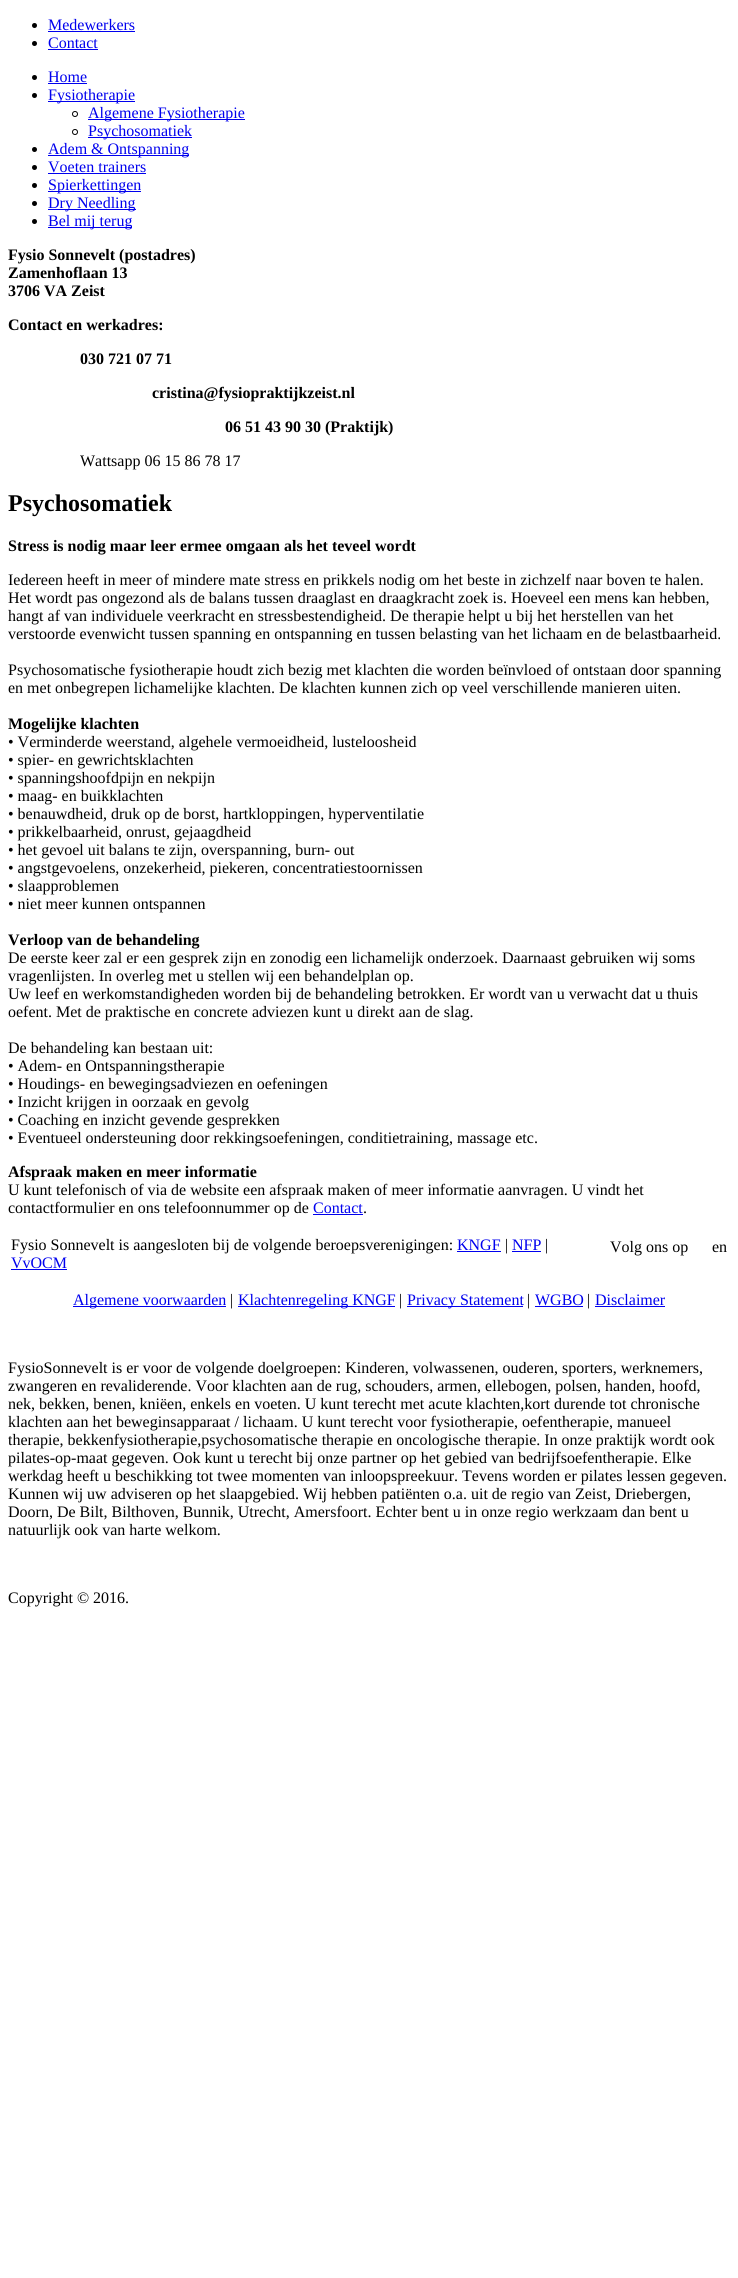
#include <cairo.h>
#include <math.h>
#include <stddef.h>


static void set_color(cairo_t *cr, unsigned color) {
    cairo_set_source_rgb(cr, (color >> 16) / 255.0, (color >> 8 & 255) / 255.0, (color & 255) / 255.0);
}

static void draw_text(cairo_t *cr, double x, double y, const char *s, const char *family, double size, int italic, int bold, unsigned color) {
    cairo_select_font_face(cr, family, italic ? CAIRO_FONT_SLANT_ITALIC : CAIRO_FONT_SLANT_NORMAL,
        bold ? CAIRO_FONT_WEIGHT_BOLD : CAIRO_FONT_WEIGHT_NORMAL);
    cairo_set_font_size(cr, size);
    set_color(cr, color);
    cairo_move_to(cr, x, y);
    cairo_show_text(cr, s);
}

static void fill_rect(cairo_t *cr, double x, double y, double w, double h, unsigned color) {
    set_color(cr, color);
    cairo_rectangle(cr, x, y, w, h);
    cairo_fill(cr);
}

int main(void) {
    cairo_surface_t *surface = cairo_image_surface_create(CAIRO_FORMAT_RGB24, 738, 2278);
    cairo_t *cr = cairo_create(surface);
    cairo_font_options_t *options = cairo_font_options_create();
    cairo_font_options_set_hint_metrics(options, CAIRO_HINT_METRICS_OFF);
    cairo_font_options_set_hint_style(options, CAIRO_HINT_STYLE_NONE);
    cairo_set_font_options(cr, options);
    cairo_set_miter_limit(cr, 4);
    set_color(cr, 0xFFFFFF);
    cairo_paint(cr);
    set_color(cr, 0x000000);
    cairo_arc(cr, 34.5, 25.5, 2.5, 0, 2 * M_PI);
    cairo_fill(cr);
    draw_text(cr, 48, 30, "Medewerkers", "Liberation Serif", 16, 0, 0, 0x0000EE);
    fill_rect(cr, 48, 31, 87, 1, 0x0000EE);
    set_color(cr, 0x000000);
    cairo_new_path(cr);
    cairo_arc(cr, 34.5, 43.5, 2.5, 0, 2 * M_PI);
    cairo_fill(cr);
    draw_text(cr, 48, 48, "Contact", "Liberation Serif", 16, 0, 0, 0x0000EE);
    fill_rect(cr, 48, 49, 50, 1, 0x0000EE);
    set_color(cr, 0x000000);
    cairo_new_path(cr);
    cairo_arc(cr, 34.5, 77.5, 2.5, 0, 2 * M_PI);
    cairo_fill(cr);
    draw_text(cr, 48, 82, "Home", "Liberation Serif", 16, 0, 0, 0x0000EE);
    fill_rect(cr, 48, 83, 39, 1, 0x0000EE);
    set_color(cr, 0x000000);
    cairo_new_path(cr);
    cairo_arc(cr, 34.5, 95.5, 2.5, 0, 2 * M_PI);
    cairo_fill(cr);
    fill_rect(cr, 48, 101, 87, 1, 0x0000EE);
    draw_text(cr, 48, 100, "Fysiotherapie", "Liberation Serif", 16, 0, 0, 0x0000EE);
    cairo_new_path(cr);
    cairo_arc(cr, 75, 114, 2.5, 0, 2 * M_PI);
    set_color(cr, 0x000000);
    cairo_set_line_width(cr, 1);
    cairo_stroke(cr);
    fill_rect(cr, 88, 119, 157, 1, 0x0000EE);
    draw_text(cr, 88, 118, "Algemene Fysiotherapie", "Liberation Serif", 16, 0, 0, 0x0000EE);
    cairo_new_path(cr);
    cairo_arc(cr, 75, 132, 2.5, 0, 2 * M_PI);
    set_color(cr, 0x000000);
    cairo_stroke(cr);
    fill_rect(cr, 88, 137, 104, 1, 0x0000EE);
    draw_text(cr, 88, 136, "Psychosomatiek", "Liberation Serif", 16, 0, 0, 0x0000EE);
    set_color(cr, 0x000000);
    cairo_new_path(cr);
    cairo_arc(cr, 34.5, 149.5, 2.5, 0, 2 * M_PI);
    cairo_fill(cr);
    fill_rect(cr, 48, 155, 141, 1, 0x0000EE);
    draw_text(cr, 48, 154, "Adem & Ontspanning", "Liberation Serif", 16, 0, 0, 0x0000EE);
    set_color(cr, 0x000000);
    cairo_new_path(cr);
    cairo_arc(cr, 34.5, 167.5, 2.5, 0, 2 * M_PI);
    cairo_fill(cr);
    draw_text(cr, 48, 172, "Voeten trainers", "Liberation Serif", 16, 0, 0, 0x0000EE);
    fill_rect(cr, 48, 173, 98, 1, 0x0000EE);
    set_color(cr, 0x000000);
    cairo_new_path(cr);
    cairo_arc(cr, 34.5, 185.5, 2.5, 0, 2 * M_PI);
    cairo_fill(cr);
    fill_rect(cr, 48, 191, 93, 1, 0x0000EE);
    draw_text(cr, 48, 190, "Spierkettingen", "Liberation Serif", 16, 0, 0, 0x0000EE);
    set_color(cr, 0x000000);
    cairo_new_path(cr);
    cairo_arc(cr, 34.5, 203.5, 2.5, 0, 2 * M_PI);
    cairo_fill(cr);
    fill_rect(cr, 48, 209, 88, 1, 0x0000EE);
    draw_text(cr, 48, 208, "Dry Needling", "Liberation Serif", 16, 0, 0, 0x0000EE);
    set_color(cr, 0x000000);
    cairo_new_path(cr);
    cairo_arc(cr, 34.5, 221.5, 2.5, 0, 2 * M_PI);
    cairo_fill(cr);
    fill_rect(cr, 48, 227, 84, 1, 0x0000EE);
    draw_text(cr, 48, 226, "Bel mij terug", "Liberation Serif", 16, 0, 0, 0x0000EE);
    draw_text(cr, 8, 260, "Fysio Sonnevelt (postadres)", "Liberation Serif", 16, 0, 1, 0x000000);
    draw_text(cr, 8, 278, "Zamenhoflaan 13", "Liberation Serif", 16, 0, 1, 0x000000);
    draw_text(cr, 8, 296, "3706 VA Zeist", "Liberation Serif", 16, 0, 1, 0x000000);
    draw_text(cr, 8, 330, "Contact en werkadres:", "Liberation Serif", 16, 0, 1, 0x000000);
    draw_text(cr, 80, 364, "030 721 07 71", "Liberation Serif", 16, 0, 1, 0x000000);
    draw_text(cr, 152, 398, "cristina@fysiopraktijkzeist.nl", "Liberation Serif", 16, 0, 1, 0x000000);
    draw_text(cr, 225, 432, "06 51 43 90 30 (Praktijk)", "Liberation Serif", 16, 0, 1, 0x000000);
    draw_text(cr, 80, 466, "Wattsapp 06 15 86 78 17", "Liberation Serif", 16, 0, 0, 0x000000);
    draw_text(cr, 8, 511, "Psychosomatiek", "Liberation Serif", 24, 0, 1, 0x000000);
    draw_text(cr, 8, 551, "Stress is nodig maar leer ermee omgaan als het teveel wordt", "Liberation Serif", 16, 0, 1, 0x000000);
    draw_text(cr, 8, 585, "Iedereen heeft in meer of mindere mate stress en prikkels nodig om het beste in zichzelf naar boven te halen.", "Liberation Serif", 16, 0, 0, 0x000000);
    draw_text(cr, 8, 603, "Het wordt pas ongezond als de balans tussen draaglast en draagkracht zoek is. Hoeveel een mens kan hebben,", "Liberation Serif", 16, 0, 0, 0x000000);
    draw_text(cr, 8, 621, "hangt af van individuele veerkracht en stressbestendigheid. De therapie helpt u bij het herstellen van het", "Liberation Serif", 16, 0, 0, 0x000000);
    draw_text(cr, 8, 639, "verstoorde evenwicht tussen spanning en ontspanning en tussen belasting van het lichaam en de belastbaarheid.", "Liberation Serif", 16, 0, 0, 0x000000);
    draw_text(cr, 8, 675, "Psychosomatische fysiotherapie houdt zich bezig met klachten die worden beïnvloed of ontstaan door spanning", "Liberation Serif", 16, 0, 0, 0x000000);
    draw_text(cr, 8, 693, "en met onbegrepen lichamelijke klachten. De klachten kunnen zich op veel verschillende manieren uiten.", "Liberation Serif", 16, 0, 0, 0x000000);
    draw_text(cr, 8, 729, "Mogelijke klachten", "Liberation Serif", 16, 0, 1, 0x000000);
    draw_text(cr, 8, 747, "• Verminderde weerstand, algehele vermoeidheid, lusteloosheid", "Liberation Serif", 16, 0, 0, 0x000000);
    draw_text(cr, 8, 765, "• spier- en gewrichtsklachten", "Liberation Serif", 16, 0, 0, 0x000000);
    draw_text(cr, 8, 783, "• spanningshoofdpijn en nekpijn", "Liberation Serif", 16, 0, 0, 0x000000);
    draw_text(cr, 8, 801, "• maag- en buikklachten", "Liberation Serif", 16, 0, 0, 0x000000);
    draw_text(cr, 8, 819, "• benauwdheid, druk op de borst, hartkloppingen, hyperventilatie", "Liberation Serif", 16, 0, 0, 0x000000);
    draw_text(cr, 8, 837, "• prikkelbaarheid, onrust, gejaagdheid", "Liberation Serif", 16, 0, 0, 0x000000);
    draw_text(cr, 8, 855, "• het gevoel uit balans te zijn, overspanning, burn- out", "Liberation Serif", 16, 0, 0, 0x000000);
    draw_text(cr, 8, 873, "• angstgevoelens, onzekerheid, piekeren, concentratiestoornissen", "Liberation Serif", 16, 0, 0, 0x000000);
    draw_text(cr, 8, 891, "• slaapproblemen", "Liberation Serif", 16, 0, 0, 0x000000);
    draw_text(cr, 8, 909, "• niet meer kunnen ontspannen", "Liberation Serif", 16, 0, 0, 0x000000);
    draw_text(cr, 8, 945, "Verloop van de behandeling", "Liberation Serif", 16, 0, 1, 0x000000);
    draw_text(cr, 8, 963, "De eerste keer zal er een gesprek zijn en zonodig een lichamelijk onderzoek. Daarnaast gebruiken wij soms", "Liberation Serif", 16, 0, 0, 0x000000);
    draw_text(cr, 8, 981, "vragenlijsten. In overleg met u stellen wij een behandelplan op.", "Liberation Serif", 16, 0, 0, 0x000000);
    draw_text(cr, 8, 999, "Uw leef en werkomstandigheden worden bij de behandeling betrokken. Er wordt van u verwacht dat u thuis", "Liberation Serif", 16, 0, 0, 0x000000);
    draw_text(cr, 8, 1017, "oefent. Met de praktische en concrete adviezen kunt u direkt aan de slag.", "Liberation Serif", 16, 0, 0, 0x000000);
    draw_text(cr, 8, 1053, "De behandeling kan bestaan uit:", "Liberation Serif", 16, 0, 0, 0x000000);
    draw_text(cr, 8, 1071, "• Adem- en Ontspanningstherapie", "Liberation Serif", 16, 0, 0, 0x000000);
    draw_text(cr, 8, 1089, "• Houdings- en bewegingsadviezen en oefeningen", "Liberation Serif", 16, 0, 0, 0x000000);
    draw_text(cr, 8, 1107, "• Inzicht krijgen in oorzaak en gevolg", "Liberation Serif", 16, 0, 0, 0x000000);
    draw_text(cr, 8, 1125, "• Coaching en inzicht gevende gesprekken", "Liberation Serif", 16, 0, 0, 0x000000);
    draw_text(cr, 8, 1143, "• Eventueel ondersteuning door rekkingsoefeningen, conditietraining, massage etc.", "Liberation Serif", 16, 0, 0, 0x000000);
    draw_text(cr, 8, 1177, "Afspraak maken en meer informatie", "Liberation Serif", 16, 0, 1, 0x000000);
    draw_text(cr, 8, 1195, "U kunt telefonisch of via de website een afspraak maken of meer informatie aanvragen. U vindt het", "Liberation Serif", 16, 0, 0, 0x000000);
    draw_text(cr, 8, 1213, "contactformulier en ons telefoonnummer op de", "Liberation Serif", 16, 0, 0, 0x000000);
    draw_text(cr, 313, 1213, "Contact", "Liberation Serif", 16, 0, 0, 0x0000EE);
    fill_rect(cr, 313, 1214, 50, 1, 0x0000EE);
    draw_text(cr, 363, 1213, ".", "Liberation Serif", 16, 0, 0, 0x000000);
    draw_text(cr, 11, 1250, "Fysio Sonnevelt is aangesloten bij de volgende beroepsverenigingen:", "Liberation Serif", 16, 0, 0, 0x000000);
    draw_text(cr, 457, 1250, "KNGF", "Liberation Serif", 16, 0, 0, 0x0000EE);
    fill_rect(cr, 457, 1251, 44, 1, 0x0000EE);
    draw_text(cr, 505, 1250, "|", "Liberation Serif", 16, 0, 0, 0x000000);
    draw_text(cr, 512, 1250, "NFP", "Liberation Serif", 16, 0, 0, 0x0000EE);
    fill_rect(cr, 512, 1251, 29, 1, 0x0000EE);
    draw_text(cr, 545, 1250, "|", "Liberation Serif", 16, 0, 0, 0x000000);
    draw_text(cr, 11, 1268, "VvOCM", "Liberation Serif", 16, 0, 0, 0x0000EE);
    fill_rect(cr, 11, 1269, 56, 1, 0x0000EE);
    draw_text(cr, 610, 1252, "Volg ons op", "Liberation Serif", 16, 0, 0, 0x000000);
    draw_text(cr, 712, 1252, "en", "Liberation Serif", 16, 0, 0, 0x000000);
    fill_rect(cr, 73, 1306, 153, 1, 0x0000EE);
    draw_text(cr, 73, 1305, "Algemene voorwaarden", "Liberation Serif", 16, 0, 0, 0x0000EE);
    draw_text(cr, 230, 1305, "|", "Liberation Serif", 16, 0, 0, 0x000000);
    fill_rect(cr, 238, 1306, 157, 1, 0x0000EE);
    draw_text(cr, 238, 1305, "Klachtenregeling KNGF", "Liberation Serif", 16, 0, 0, 0x0000EE);
    draw_text(cr, 399, 1305, "|", "Liberation Serif", 16, 0, 0, 0x000000);
    fill_rect(cr, 407, 1306, 116, 1, 0x0000EE);
    draw_text(cr, 407, 1305, "Privacy Statement", "Liberation Serif", 16, 0, 0, 0x0000EE);
    draw_text(cr, 527, 1305, "|", "Liberation Serif", 16, 0, 0, 0x000000);
    draw_text(cr, 535, 1305, "WGBO", "Liberation Serif", 16, 0, 0, 0x0000EE);
    fill_rect(cr, 535, 1306, 48, 1, 0x0000EE);
    draw_text(cr, 587, 1305, "|", "Liberation Serif", 16, 0, 0, 0x000000);
    draw_text(cr, 595, 1305, "Disclaimer", "Liberation Serif", 16, 0, 0, 0x0000EE);
    fill_rect(cr, 595, 1306, 70, 1, 0x0000EE);
    draw_text(cr, 8, 1373, "FysioSonnevelt is er voor de volgende doelgroepen: Kinderen, volwassenen, ouderen, sporters, werknemers,", "Liberation Serif", 16, 0, 0, 0x000000);
    draw_text(cr, 8, 1391, "zwangeren en revaliderende. Voor klachten aan de rug, schouders, armen, ellebogen, polsen, handen, hoofd,", "Liberation Serif", 16, 0, 0, 0x000000);
    draw_text(cr, 8, 1409, "nek, bekken, benen, kniëen, enkels en voeten. U kunt terecht met acute klachten,kort durende tot chronische", "Liberation Serif", 16, 0, 0, 0x000000);
    draw_text(cr, 8, 1427, "klachten aan het beweginsapparaat / lichaam. U kunt terecht voor fysiotherapie, oefentherapie, manueel", "Liberation Serif", 16, 0, 0, 0x000000);
    draw_text(cr, 8, 1445, "therapie, bekkenfysiotherapie,psychosomatische therapie en oncologische therapie. In onze praktijk wordt ook", "Liberation Serif", 16, 0, 0, 0x000000);
    draw_text(cr, 8, 1463, "pilates-op-maat gegeven. Ook kunt u terecht bij onze partner op het gebied van bedrijfsoefentherapie. Elke", "Liberation Serif", 16, 0, 0, 0x000000);
    draw_text(cr, 8, 1481, "werkdag heeft u beschikking tot twee momenten van inloopspreekuur. Tevens worden er pilates lessen gegeven.", "Liberation Serif", 16, 0, 0, 0x000000);
    draw_text(cr, 8, 1499, "Kunnen wij uw adviseren op het slaapgebied. Wij hebben patiënten o.a. uit de regio van Zeist, Driebergen,", "Liberation Serif", 16, 0, 0, 0x000000);
    draw_text(cr, 8, 1517, "Doorn, De Bilt, Bilthoven, Bunnik, Utrecht, Amersfoort. Echter bent u in onze regio werkzaam dan bent u", "Liberation Serif", 16, 0, 0, 0x000000);
    draw_text(cr, 8, 1535, "natuurlijk ook van harte welkom.", "Liberation Serif", 16, 0, 0, 0x000000);
    draw_text(cr, 8, 1603, "Copyright © 2016.", "Liberation Serif", 16, 0, 0, 0x000000);
    cairo_surface_write_to_png(surface, "output.png");
    cairo_font_options_destroy(options);
    cairo_destroy(cr);
    cairo_surface_destroy(surface);
    return 0;
}
